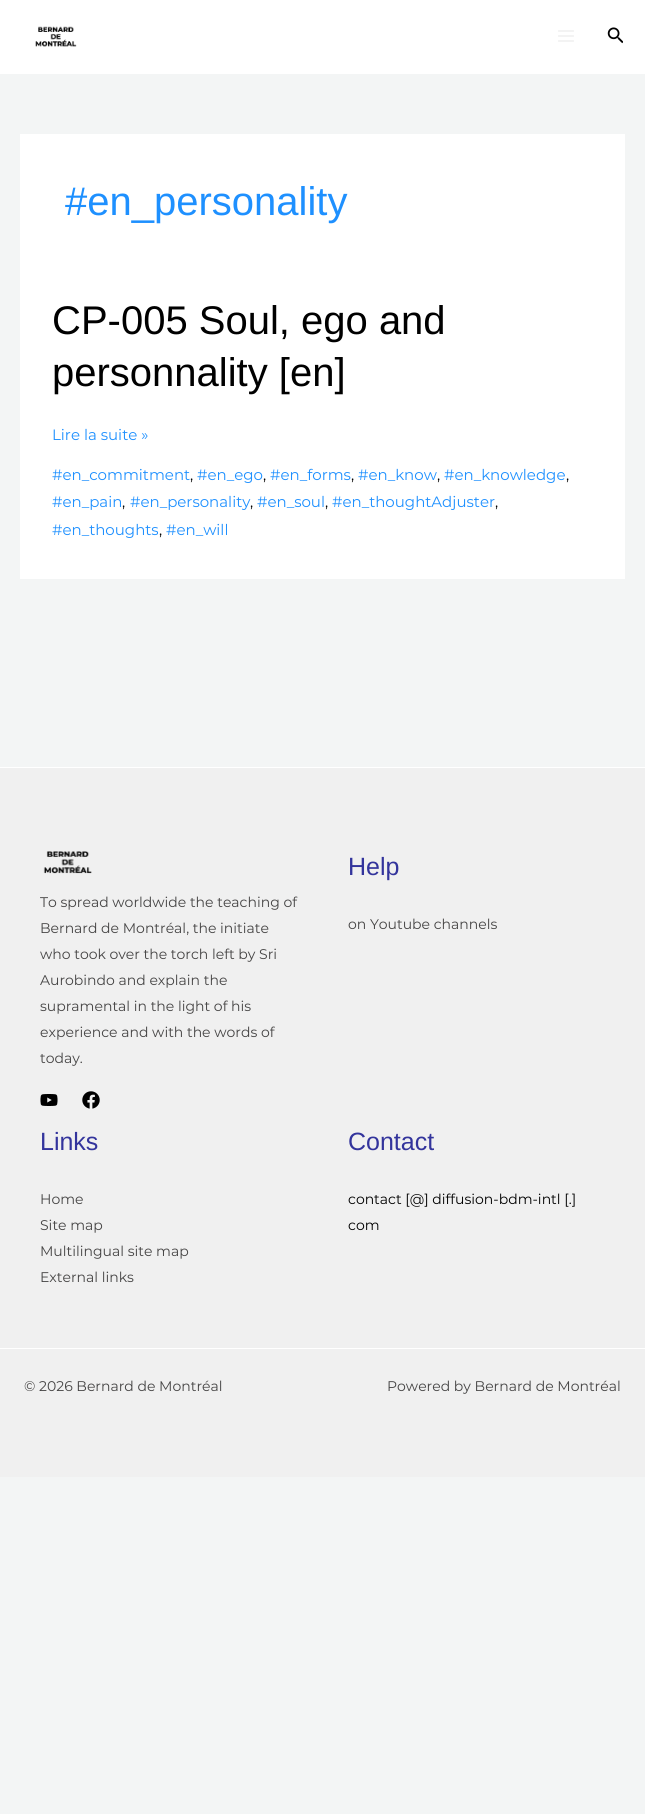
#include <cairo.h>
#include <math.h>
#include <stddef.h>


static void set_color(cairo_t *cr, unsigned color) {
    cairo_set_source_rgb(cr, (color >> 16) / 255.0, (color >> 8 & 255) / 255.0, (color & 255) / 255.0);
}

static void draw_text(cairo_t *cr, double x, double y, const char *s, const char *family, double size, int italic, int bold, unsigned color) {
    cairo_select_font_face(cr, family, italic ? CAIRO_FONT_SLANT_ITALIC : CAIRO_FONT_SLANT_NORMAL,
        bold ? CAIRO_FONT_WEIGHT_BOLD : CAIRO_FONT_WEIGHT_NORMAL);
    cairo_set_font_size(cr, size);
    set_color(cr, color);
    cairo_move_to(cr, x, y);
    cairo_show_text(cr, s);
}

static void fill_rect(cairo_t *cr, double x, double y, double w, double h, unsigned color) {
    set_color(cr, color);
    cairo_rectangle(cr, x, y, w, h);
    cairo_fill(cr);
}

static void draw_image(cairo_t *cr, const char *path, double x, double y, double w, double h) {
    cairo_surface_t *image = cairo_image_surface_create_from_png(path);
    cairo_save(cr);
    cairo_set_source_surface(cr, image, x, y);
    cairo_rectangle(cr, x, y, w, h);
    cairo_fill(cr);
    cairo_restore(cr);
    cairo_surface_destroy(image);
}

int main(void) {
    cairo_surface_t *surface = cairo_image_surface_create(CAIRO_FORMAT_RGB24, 645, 1814);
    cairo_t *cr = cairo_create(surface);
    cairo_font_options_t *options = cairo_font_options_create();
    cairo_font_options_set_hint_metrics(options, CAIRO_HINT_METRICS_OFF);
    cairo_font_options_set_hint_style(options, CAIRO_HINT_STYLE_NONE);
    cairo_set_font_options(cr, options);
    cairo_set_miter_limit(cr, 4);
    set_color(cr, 0xF3F5F5);
    cairo_paint(cr);
    fill_rect(cr, 0, 0, 645, 74, 0xFFFFFF);
    draw_image(cr, "assets/img1.png", 35, 26, 42, 21);
    draw_image(cr, "assets/img2.png", 558, 30, 16, 12);
    draw_image(cr, "assets/img3.png", 607, 27, 16, 17);
    fill_rect(cr, 20, 134, 605, 445, 0xFFFFFF);
    draw_text(cr, 65, 215, "#en_personality", "Liberation Sans", 40, 0, 0, 0x1E90FF);
    draw_text(cr, 52, 334, "CP-005 Soul, ego and", "Liberation Sans", 40, 0, 0, 0x000000);
    draw_text(cr, 52, 386, "personnality [en]", "Liberation Sans", 40, 0, 0, 0x000000);
    draw_text(cr, 52, 440, "Lire la suite »", "Montserrat", 15, 0, 0, 0x1E90FF);
    draw_text(cr, 52, 480, "#en_commitment", "Montserrat", 15, 0, 0, 0x1E90FF);
    draw_text(cr, 190, 480, ",", "Montserrat", 15, 0, 0, 0x000000);
    draw_text(cr, 197, 480, "#en_ego", "Montserrat", 15, 0, 0, 0x1E90FF);
    draw_text(cr, 263, 480, ",", "Montserrat", 15, 0, 0, 0x000000);
    draw_text(cr, 270, 480, "#en_forms", "Montserrat", 15, 0, 0, 0x1E90FF);
    draw_text(cr, 351, 480, ",", "Montserrat", 15, 0, 0, 0x000000);
    draw_text(cr, 358, 480, "#en_know", "Montserrat", 15, 0, 0, 0x1E90FF);
    draw_text(cr, 437, 480, ",", "Montserrat", 15, 0, 0, 0x000000);
    draw_text(cr, 444, 480, "#en_knowledge", "Montserrat", 15, 0, 0, 0x1E90FF);
    draw_text(cr, 566, 480, ",", "Montserrat", 15, 0, 0, 0x000000);
    draw_text(cr, 52, 507, "#en_pain", "Montserrat", 15, 0, 0, 0x1E90FF);
    draw_text(cr, 122, 507, ",", "Montserrat", 15, 0, 0, 0x000000);
    draw_text(cr, 130, 507, "#en_personality", "Montserrat", 15, 0, 0, 0x1E90FF);
    draw_text(cr, 250, 507, ",", "Montserrat", 15, 0, 0, 0x000000);
    draw_text(cr, 257, 507, "#en_soul", "Montserrat", 15, 0, 0, 0x1E90FF);
    draw_text(cr, 325, 507, ",", "Montserrat", 15, 0, 0, 0x000000);
    draw_text(cr, 332, 507, "#en_thoughtAdjuster", "Montserrat", 15, 0, 0, 0x1E90FF);
    draw_text(cr, 495, 507, ",", "Montserrat", 15, 0, 0, 0x000000);
    draw_text(cr, 52, 535, "#en_thoughts", "Montserrat", 15, 0, 0, 0x1E90FF);
    draw_text(cr, 159, 535, ",", "Montserrat", 15, 0, 0, 0x000000);
    draw_text(cr, 166, 535, "#en_will", "Montserrat", 15, 0, 0, 0x1E90FF);
    fill_rect(cr, 0, 768, 645, 580, 0xF0F0F0);
    fill_rect(cr, 0, 767, 645, 1, 0xFFFFFF);
    draw_image(cr, "assets/img4.png", 43, 851, 49, 23);
    draw_text(cr, 40, 907, "To spread worldwide the teaching of", "Montserrat", 14, 0, 0, 0x454444);
    draw_text(cr, 40, 933, "Bernard de Montréal, the initiate", "Montserrat", 14, 0, 0, 0x454444);
    draw_text(cr, 40, 959, "who took over the torch left by Sri", "Montserrat", 14, 0, 0, 0x454444);
    draw_text(cr, 40, 985, "Aurobindo and explain the", "Montserrat", 14, 0, 0, 0x454444);
    draw_text(cr, 40, 1011, "supramental in the light of his", "Montserrat", 14, 0, 0, 0x454444);
    draw_text(cr, 40, 1037, "experience and with the words of", "Montserrat", 14, 0, 0, 0x454444);
    draw_text(cr, 40, 1063, "today.", "Montserrat", 14, 0, 0, 0x454444);
    draw_image(cr, "assets/img5.png", 40, 1094, 18, 12);
    draw_image(cr, "assets/img6.png", 82, 1091, 18, 18);
    draw_text(cr, 348, 875, "Help", "Liberation Sans", 25, 0, 0, 0x33349C);
    draw_text(cr, 348, 929, "on Youtube channels", "Montserrat", 14, 0, 0, 0x454444);
    draw_text(cr, 40, 1150, "Links", "Liberation Sans", 25, 0, 0, 0x33349C);
    draw_text(cr, 40, 1204, "Home", "Montserrat", 14, 0, 0, 0x454444);
    draw_text(cr, 40, 1230, "Site map", "Montserrat", 14, 0, 0, 0x454444);
    draw_text(cr, 40, 1256, "Multilingual site map", "Montserrat", 14, 0, 0, 0x454444);
    draw_text(cr, 40, 1282, "External links", "Montserrat", 14, 0, 0, 0x454444);
    draw_text(cr, 348, 1150, "Contact", "Liberation Sans", 25, 0, 0, 0x33349C);
    draw_text(cr, 348, 1204, "contact [@] diffusion-bdm-intl [.]", "Montserrat", 14, 0, 0, 0x000000);
    draw_text(cr, 348, 1230, "com", "Montserrat", 14, 0, 0, 0x000000);
    fill_rect(cr, 0, 1349, 645, 128, 0xF0F0F0);
    fill_rect(cr, 0, 1348, 645, 1, 0xFFFFFF);
    draw_text(cr, 24, 1391, "© 2026 Bernard de Montréal", "Montserrat", 14, 0, 0, 0x454444);
    draw_text(cr, 387, 1391, "Powered by Bernard de Montréal", "Montserrat", 14, 0, 0, 0x454444);
    cairo_surface_write_to_png(surface, "output.png");
    cairo_font_options_destroy(options);
    cairo_destroy(cr);
    cairo_surface_destroy(surface);
    return 0;
}
